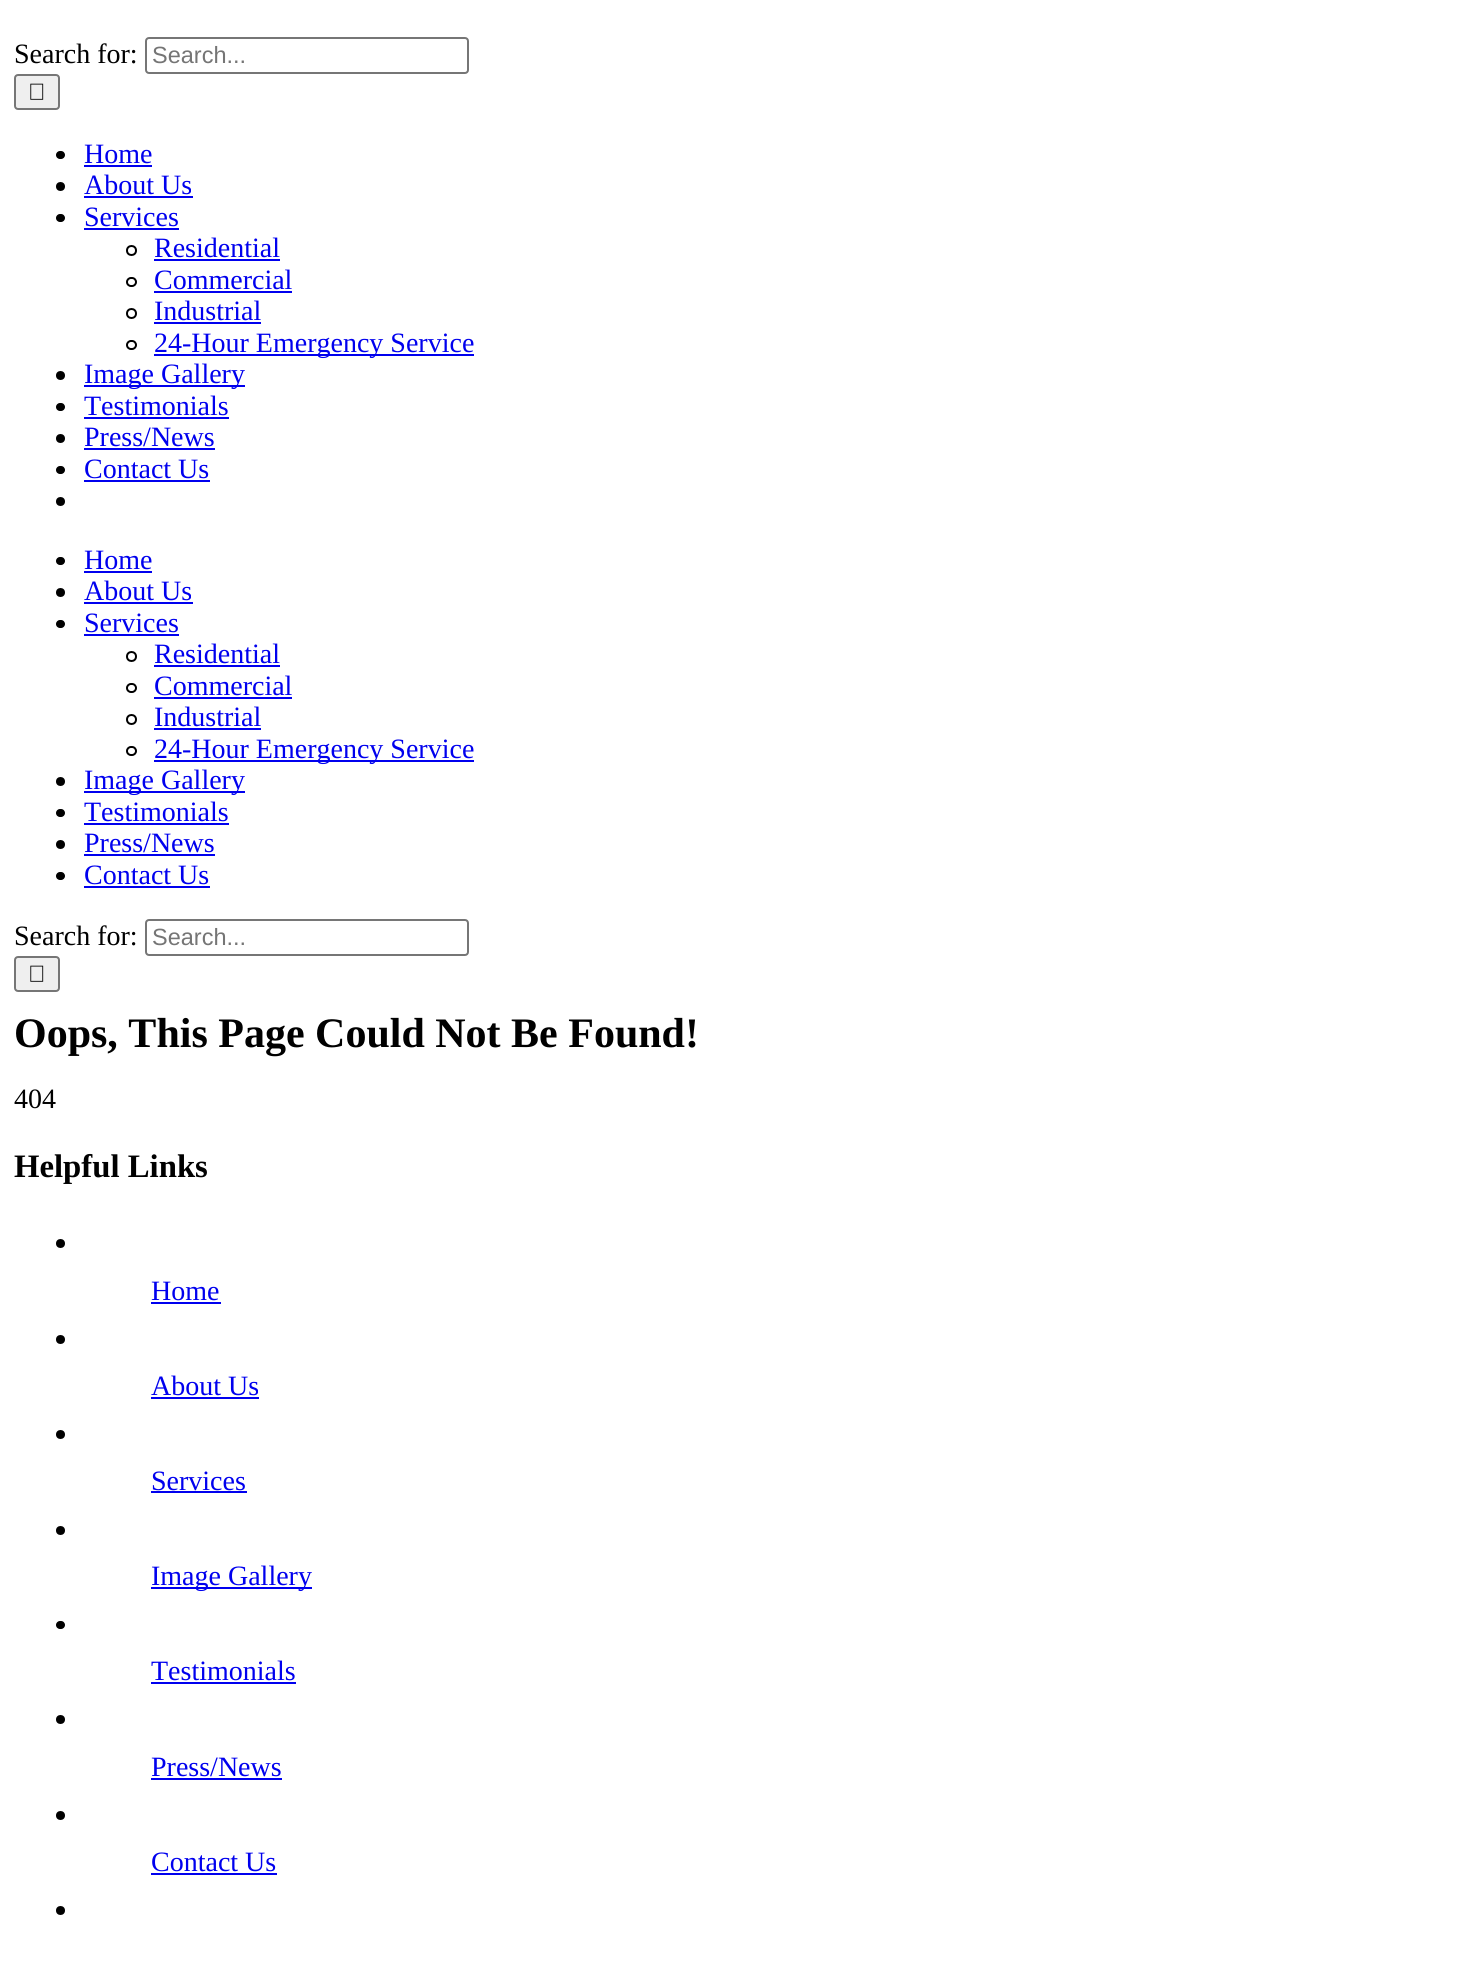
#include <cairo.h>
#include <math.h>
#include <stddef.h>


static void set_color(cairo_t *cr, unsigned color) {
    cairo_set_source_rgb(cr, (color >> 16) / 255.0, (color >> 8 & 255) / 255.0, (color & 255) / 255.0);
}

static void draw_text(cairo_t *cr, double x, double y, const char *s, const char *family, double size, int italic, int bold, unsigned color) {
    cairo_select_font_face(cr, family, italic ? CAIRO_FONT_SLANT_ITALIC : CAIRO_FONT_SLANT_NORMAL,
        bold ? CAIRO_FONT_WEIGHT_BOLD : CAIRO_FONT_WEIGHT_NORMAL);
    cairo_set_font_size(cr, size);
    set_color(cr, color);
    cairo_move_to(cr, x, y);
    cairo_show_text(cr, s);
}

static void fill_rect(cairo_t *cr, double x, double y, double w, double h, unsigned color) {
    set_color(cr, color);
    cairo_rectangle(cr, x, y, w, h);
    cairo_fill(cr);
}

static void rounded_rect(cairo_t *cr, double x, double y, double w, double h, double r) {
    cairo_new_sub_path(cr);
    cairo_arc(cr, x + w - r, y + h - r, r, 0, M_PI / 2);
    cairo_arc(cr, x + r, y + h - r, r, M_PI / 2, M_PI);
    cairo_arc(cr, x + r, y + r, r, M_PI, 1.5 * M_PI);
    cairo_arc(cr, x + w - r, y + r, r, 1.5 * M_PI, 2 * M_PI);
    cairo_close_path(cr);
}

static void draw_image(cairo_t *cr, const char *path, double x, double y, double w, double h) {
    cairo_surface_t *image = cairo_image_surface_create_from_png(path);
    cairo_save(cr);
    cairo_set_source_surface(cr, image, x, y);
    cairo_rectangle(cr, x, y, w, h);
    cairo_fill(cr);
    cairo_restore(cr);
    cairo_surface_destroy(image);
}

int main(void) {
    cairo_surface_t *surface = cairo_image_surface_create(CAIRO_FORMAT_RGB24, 1459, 1970);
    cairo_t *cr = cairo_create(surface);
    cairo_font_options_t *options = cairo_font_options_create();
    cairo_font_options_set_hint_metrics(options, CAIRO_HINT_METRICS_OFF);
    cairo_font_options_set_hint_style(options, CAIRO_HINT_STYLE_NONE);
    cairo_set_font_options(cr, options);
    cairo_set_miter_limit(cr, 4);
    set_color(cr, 0xFFFFFF);
    cairo_paint(cr);
    draw_text(cr, 14, 63, "Search for:", "Liberation Serif", 28, 0, 0, 0x000000);
    rounded_rect(cr, 146, 38, 322, 35, 3);
    set_color(cr, 0x767676);
    cairo_stroke(cr);
    draw_text(cr, 152, 63, "Search...", "Liberation Sans", 23.5, 0, 0, 0x757575);
    set_color(cr, 0xEFEFEF);
    rounded_rect(cr, 15, 75, 44, 34, 3);
    cairo_fill_preserve(cr);
    set_color(cr, 0x767676);
    cairo_stroke(cr);
    draw_image(cr, "assets/img1.png", 30, 83, 14, 17);
    set_color(cr, 0x000000);
    rounded_rect(cr, 56, 151, 9, 8, 4);
    cairo_fill(cr);
    draw_text(cr, 84, 163, "Home", "Liberation Serif", 28, 0, 0, 0x0000EE);
    fill_rect(cr, 84, 165, 68, 2, 0x0000EE);
    set_color(cr, 0x000000);
    cairo_new_path(cr);
    cairo_arc(cr, 60.5, 186.5, 4.5, 0, 2 * M_PI);
    cairo_fill(cr);
    draw_text(cr, 84, 194, "About Us", "Liberation Serif", 28, 0, 0, 0x0000EE);
    fill_rect(cr, 84, 196, 109, 2, 0x0000EE);
    set_color(cr, 0x000000);
    rounded_rect(cr, 56, 214, 9, 8, 4);
    cairo_fill(cr);
    draw_text(cr, 84, 226, "Services", "Liberation Serif", 28, 0, 0, 0x0000EE);
    fill_rect(cr, 84, 228, 95, 2, 0x0000EE);
    cairo_new_path(cr);
    cairo_arc(cr, 131.5, 250.5, 4.5, 0, 2 * M_PI);
    set_color(cr, 0x000000);
    cairo_stroke(cr);
    draw_text(cr, 154, 257, "Residential", "Liberation Serif", 28, 0, 0, 0x0000EE);
    fill_rect(cr, 154, 259, 126, 2, 0x0000EE);
    rounded_rect(cr, 127, 278, 9, 8, 4);
    set_color(cr, 0x000000);
    cairo_stroke(cr);
    draw_text(cr, 154, 289, "Commercial", "Liberation Serif", 28, 0, 0, 0x0000EE);
    fill_rect(cr, 154, 291, 138, 2, 0x0000EE);
    cairo_new_path(cr);
    cairo_arc(cr, 131.5, 313.5, 4.5, 0, 2 * M_PI);
    set_color(cr, 0x000000);
    cairo_stroke(cr);
    draw_text(cr, 154, 320, "Industrial", "Liberation Serif", 28, 0, 0, 0x0000EE);
    fill_rect(cr, 154, 322, 107, 2, 0x0000EE);
    rounded_rect(cr, 127, 341, 9, 8, 4);
    set_color(cr, 0x000000);
    cairo_stroke(cr);
    fill_rect(cr, 154, 354, 320, 2, 0x0000EE);
    draw_text(cr, 154, 352, "24-Hour Emergency Service", "Liberation Serif", 28, 0, 0, 0x0000EE);
    set_color(cr, 0x000000);
    cairo_new_path(cr);
    cairo_arc(cr, 60.5, 375.5, 4.5, 0, 2 * M_PI);
    cairo_fill(cr);
    fill_rect(cr, 84, 385, 161, 2, 0x0000EE);
    draw_text(cr, 84, 383, "Image Gallery", "Liberation Serif", 28, 0, 0, 0x0000EE);
    set_color(cr, 0x000000);
    rounded_rect(cr, 56, 403, 9, 8, 4);
    cairo_fill(cr);
    draw_text(cr, 84, 415, "Testimonials", "Liberation Serif", 28, 0, 0, 0x0000EE);
    fill_rect(cr, 84, 417, 145, 2, 0x0000EE);
    set_color(cr, 0x000000);
    cairo_new_path(cr);
    cairo_arc(cr, 60.5, 438.5, 4.5, 0, 2 * M_PI);
    cairo_fill(cr);
    draw_text(cr, 84, 446, "Press/News", "Liberation Serif", 28, 0, 0, 0x0000EE);
    fill_rect(cr, 84, 448, 131, 2, 0x0000EE);
    set_color(cr, 0x000000);
    rounded_rect(cr, 56, 466, 9, 8, 4);
    cairo_fill(cr);
    draw_text(cr, 84, 478, "Contact Us", "Liberation Serif", 28, 0, 0, 0x0000EE);
    fill_rect(cr, 84, 480, 126, 2, 0x0000EE);
    set_color(cr, 0x000000);
    cairo_new_path(cr);
    cairo_arc(cr, 60.5, 501.5, 4.5, 0, 2 * M_PI);
    cairo_fill(cr);
    rounded_rect(cr, 56, 557, 9, 8, 4);
    cairo_fill(cr);
    draw_text(cr, 84, 569, "Home", "Liberation Serif", 28, 0, 0, 0x0000EE);
    fill_rect(cr, 84, 571, 68, 2, 0x0000EE);
    set_color(cr, 0x000000);
    cairo_new_path(cr);
    cairo_arc(cr, 60.5, 592.5, 4.5, 0, 2 * M_PI);
    cairo_fill(cr);
    draw_text(cr, 84, 600, "About Us", "Liberation Serif", 28, 0, 0, 0x0000EE);
    fill_rect(cr, 84, 602, 109, 2, 0x0000EE);
    set_color(cr, 0x000000);
    rounded_rect(cr, 56, 620, 9, 8, 4);
    cairo_fill(cr);
    draw_text(cr, 84, 632, "Services", "Liberation Serif", 28, 0, 0, 0x0000EE);
    fill_rect(cr, 84, 634, 95, 2, 0x0000EE);
    cairo_new_path(cr);
    cairo_arc(cr, 131.5, 656.5, 4.5, 0, 2 * M_PI);
    set_color(cr, 0x000000);
    cairo_stroke(cr);
    draw_text(cr, 154, 663, "Residential", "Liberation Serif", 28, 0, 0, 0x0000EE);
    fill_rect(cr, 154, 665, 126, 2, 0x0000EE);
    rounded_rect(cr, 127, 684, 9, 8, 4);
    set_color(cr, 0x000000);
    cairo_stroke(cr);
    draw_text(cr, 154, 695, "Commercial", "Liberation Serif", 28, 0, 0, 0x0000EE);
    fill_rect(cr, 154, 697, 138, 2, 0x0000EE);
    cairo_new_path(cr);
    cairo_arc(cr, 131.5, 719.5, 4.5, 0, 2 * M_PI);
    set_color(cr, 0x000000);
    cairo_stroke(cr);
    draw_text(cr, 154, 726, "Industrial", "Liberation Serif", 28, 0, 0, 0x0000EE);
    fill_rect(cr, 154, 728, 107, 2, 0x0000EE);
    rounded_rect(cr, 127, 747, 9, 8, 4);
    set_color(cr, 0x000000);
    cairo_stroke(cr);
    fill_rect(cr, 154, 760, 320, 2, 0x0000EE);
    draw_text(cr, 154, 758, "24-Hour Emergency Service", "Liberation Serif", 28, 0, 0, 0x0000EE);
    set_color(cr, 0x000000);
    cairo_new_path(cr);
    cairo_arc(cr, 60.5, 781.5, 4.5, 0, 2 * M_PI);
    cairo_fill(cr);
    fill_rect(cr, 84, 791, 161, 2, 0x0000EE);
    draw_text(cr, 84, 789, "Image Gallery", "Liberation Serif", 28, 0, 0, 0x0000EE);
    set_color(cr, 0x000000);
    rounded_rect(cr, 56, 809, 9, 8, 4);
    cairo_fill(cr);
    draw_text(cr, 84, 821, "Testimonials", "Liberation Serif", 28, 0, 0, 0x0000EE);
    fill_rect(cr, 84, 823, 145, 2, 0x0000EE);
    set_color(cr, 0x000000);
    cairo_new_path(cr);
    cairo_arc(cr, 60.5, 844.5, 4.5, 0, 2 * M_PI);
    cairo_fill(cr);
    draw_text(cr, 84, 852, "Press/News", "Liberation Serif", 28, 0, 0, 0x0000EE);
    fill_rect(cr, 84, 854, 131, 2, 0x0000EE);
    set_color(cr, 0x000000);
    rounded_rect(cr, 56, 872, 9, 8, 4);
    cairo_fill(cr);
    draw_text(cr, 84, 884, "Contact Us", "Liberation Serif", 28, 0, 0, 0x0000EE);
    fill_rect(cr, 84, 886, 126, 2, 0x0000EE);
    draw_text(cr, 14, 945, "Search for:", "Liberation Serif", 28, 0, 0, 0x000000);
    rounded_rect(cr, 146, 920, 322, 35, 3);
    set_color(cr, 0x767676);
    cairo_stroke(cr);
    draw_text(cr, 152, 945, "Search...", "Liberation Sans", 23.5, 0, 0, 0x757575);
    set_color(cr, 0xEFEFEF);
    rounded_rect(cr, 15, 957, 44, 34, 3);
    cairo_fill_preserve(cr);
    set_color(cr, 0x767676);
    cairo_stroke(cr);
    draw_image(cr, "assets/img1.png", 30, 965, 14, 17);
    draw_text(cr, 14, 1047, "Oops, This Page Could Not Be Found!", "Liberation Serif", 42, 0, 1, 0x000000);
    draw_text(cr, 14, 1108, "404", "Liberation Serif", 28, 0, 0, 0x000000);
    draw_text(cr, 14, 1177, "Helpful Links", "Liberation Serif", 32.75, 0, 1, 0x000000);
    cairo_new_path(cr);
    cairo_arc(cr, 60.5, 1243.5, 4.5, 0, 2 * M_PI);
    cairo_fill(cr);
    draw_text(cr, 151, 1300, "Home", "Liberation Serif", 28, 0, 0, 0x0000EE);
    fill_rect(cr, 151, 1302, 70, 2, 0x0000EE);
    set_color(cr, 0x000000);
    cairo_new_path(cr);
    cairo_arc(cr, 60.5, 1339.5, 4.5, 0, 2 * M_PI);
    cairo_fill(cr);
    draw_text(cr, 151, 1395, "About Us", "Liberation Serif", 28, 0, 0, 0x0000EE);
    fill_rect(cr, 151, 1397, 108, 2, 0x0000EE);
    set_color(cr, 0x000000);
    cairo_new_path(cr);
    cairo_arc(cr, 60.5, 1434.5, 4.5, 0, 2 * M_PI);
    cairo_fill(cr);
    draw_text(cr, 151, 1490, "Services", "Liberation Serif", 28, 0, 0, 0x0000EE);
    fill_rect(cr, 151, 1491, 96, 2, 0x0000EE);
    set_color(cr, 0x000000);
    cairo_new_path(cr);
    cairo_arc(cr, 60.5, 1530.5, 4.5, 0, 2 * M_PI);
    cairo_fill(cr);
    fill_rect(cr, 151, 1587, 161, 2, 0x0000EE);
    draw_text(cr, 151, 1585, "Image Gallery", "Liberation Serif", 28, 0, 0, 0x0000EE);
    set_color(cr, 0x000000);
    rounded_rect(cr, 56, 1621, 9, 8, 4);
    cairo_fill(cr);
    draw_text(cr, 151, 1680, "Testimonials", "Liberation Serif", 28, 0, 0, 0x0000EE);
    fill_rect(cr, 151, 1682, 145, 2, 0x0000EE);
    set_color(cr, 0x000000);
    cairo_new_path(cr);
    cairo_arc(cr, 60.5, 1719.5, 4.5, 0, 2 * M_PI);
    cairo_fill(cr);
    draw_text(cr, 151, 1776, "Press/News", "Liberation Serif", 28, 0, 0, 0x0000EE);
    fill_rect(cr, 151, 1778, 131, 2, 0x0000EE);
    set_color(cr, 0x000000);
    cairo_new_path(cr);
    cairo_arc(cr, 60.5, 1815.5, 4.5, 0, 2 * M_PI);
    cairo_fill(cr);
    draw_text(cr, 151, 1871, "Contact Us", "Liberation Serif", 28, 0, 0, 0x0000EE);
    fill_rect(cr, 151, 1873, 126, 2, 0x0000EE);
    set_color(cr, 0x000000);
    cairo_new_path(cr);
    cairo_arc(cr, 60.5, 1910.5, 4.5, 0, 2 * M_PI);
    cairo_fill(cr);
    cairo_surface_write_to_png(surface, "output.png");
    cairo_font_options_destroy(options);
    cairo_destroy(cr);
    cairo_surface_destroy(surface);
    return 0;
}
